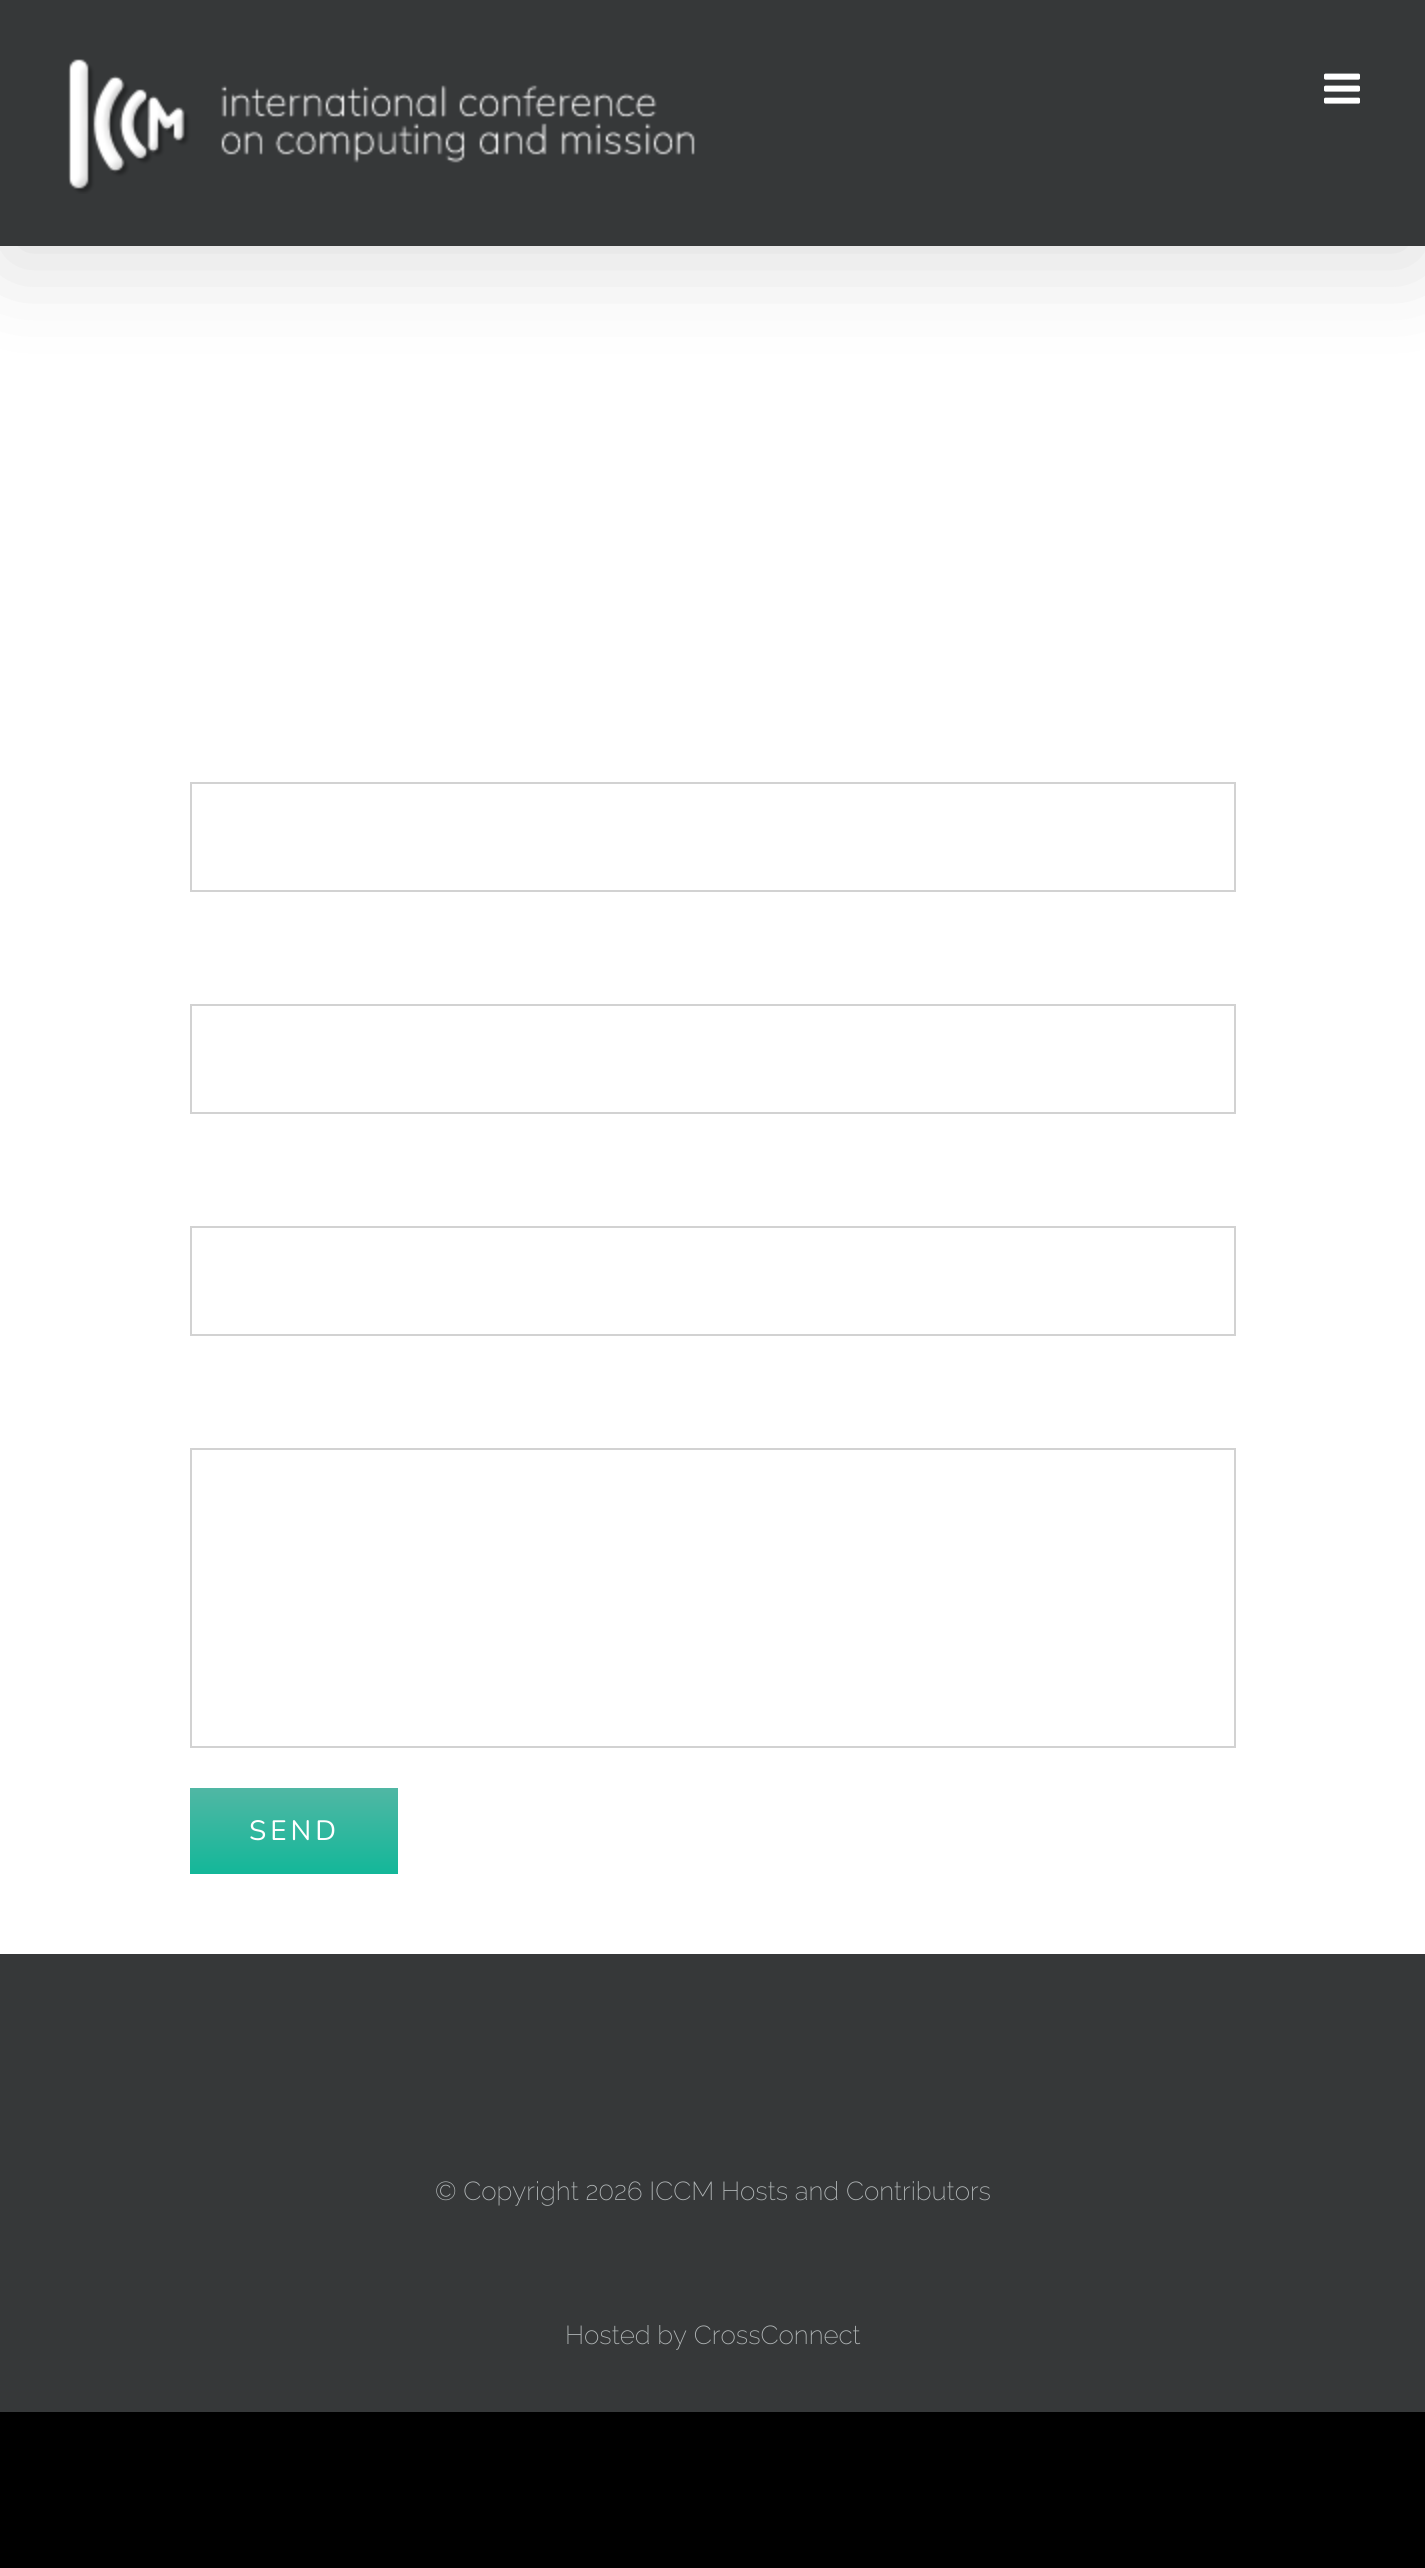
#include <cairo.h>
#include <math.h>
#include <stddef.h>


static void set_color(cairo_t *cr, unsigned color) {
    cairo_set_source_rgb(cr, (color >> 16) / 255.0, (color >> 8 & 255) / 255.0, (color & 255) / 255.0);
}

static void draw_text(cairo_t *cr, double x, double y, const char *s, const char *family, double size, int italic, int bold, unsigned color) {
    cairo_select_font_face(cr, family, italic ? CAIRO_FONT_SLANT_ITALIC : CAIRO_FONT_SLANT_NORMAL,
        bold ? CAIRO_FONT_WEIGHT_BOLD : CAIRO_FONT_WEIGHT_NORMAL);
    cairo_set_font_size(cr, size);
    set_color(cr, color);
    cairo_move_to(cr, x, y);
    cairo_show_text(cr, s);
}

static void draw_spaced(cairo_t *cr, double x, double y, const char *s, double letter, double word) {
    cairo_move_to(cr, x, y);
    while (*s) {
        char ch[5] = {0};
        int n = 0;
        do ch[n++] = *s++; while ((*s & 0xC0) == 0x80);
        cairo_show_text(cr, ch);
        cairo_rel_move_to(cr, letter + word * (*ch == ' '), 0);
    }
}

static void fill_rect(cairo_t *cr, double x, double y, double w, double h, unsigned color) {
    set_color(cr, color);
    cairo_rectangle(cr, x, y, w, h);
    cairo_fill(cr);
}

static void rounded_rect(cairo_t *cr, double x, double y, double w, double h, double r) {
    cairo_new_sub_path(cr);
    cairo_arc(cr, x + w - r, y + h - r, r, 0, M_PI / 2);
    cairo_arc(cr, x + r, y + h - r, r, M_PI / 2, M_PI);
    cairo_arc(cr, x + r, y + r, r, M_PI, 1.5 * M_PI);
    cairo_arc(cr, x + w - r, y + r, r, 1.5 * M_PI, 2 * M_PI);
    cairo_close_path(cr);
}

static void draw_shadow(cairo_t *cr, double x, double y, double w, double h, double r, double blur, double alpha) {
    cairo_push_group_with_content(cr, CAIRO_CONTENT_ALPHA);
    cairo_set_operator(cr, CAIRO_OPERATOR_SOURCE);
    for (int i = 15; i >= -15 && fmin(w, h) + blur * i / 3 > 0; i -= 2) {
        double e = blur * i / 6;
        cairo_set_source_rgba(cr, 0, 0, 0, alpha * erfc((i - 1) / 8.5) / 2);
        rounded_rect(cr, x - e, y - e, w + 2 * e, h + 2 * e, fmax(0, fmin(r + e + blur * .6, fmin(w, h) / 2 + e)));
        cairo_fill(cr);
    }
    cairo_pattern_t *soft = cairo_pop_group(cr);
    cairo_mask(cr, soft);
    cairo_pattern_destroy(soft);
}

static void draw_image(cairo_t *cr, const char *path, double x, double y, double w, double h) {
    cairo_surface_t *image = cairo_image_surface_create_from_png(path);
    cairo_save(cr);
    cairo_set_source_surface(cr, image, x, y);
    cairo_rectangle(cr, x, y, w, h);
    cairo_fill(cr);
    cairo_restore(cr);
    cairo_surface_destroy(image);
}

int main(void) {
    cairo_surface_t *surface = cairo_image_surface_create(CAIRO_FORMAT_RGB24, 1425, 2568);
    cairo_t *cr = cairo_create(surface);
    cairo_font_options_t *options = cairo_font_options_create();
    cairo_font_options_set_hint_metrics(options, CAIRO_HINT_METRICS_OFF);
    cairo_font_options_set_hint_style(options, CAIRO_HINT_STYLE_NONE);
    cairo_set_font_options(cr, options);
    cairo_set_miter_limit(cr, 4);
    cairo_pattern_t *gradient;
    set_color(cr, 0x000000);
    cairo_paint(cr);
    fill_rect(cr, 0, 246, 1425, 1708, 0xFFFFFF);
    set_color(cr, 0x000000);
    draw_shadow(cr, 4, 24, 1418, 238, 0, 50, 0.14);
    fill_rect(cr, 0, 0, 1425, 246, 0x363839);
    draw_image(cr, "assets/img1.png", 68, 59, 627, 135);
    draw_image(cr, "assets/img2.png", 1324, 73, 36, 31);
    cairo_rectangle(cr, 191, 783, 1044, 108);
    set_color(cr, 0xD2D2D2);
    cairo_stroke(cr);
    cairo_rectangle(cr, 191, 1005, 1044, 108);
    cairo_stroke(cr);
    cairo_rectangle(cr, 191, 1227, 1044, 108);
    cairo_stroke(cr);
    cairo_rectangle(cr, 191, 1449, 1044, 298);
    cairo_stroke(cr);
    gradient = cairo_pattern_create_linear(294, 1874, 294, 1788);
    cairo_pattern_add_color_stop_rgba(gradient, 0, 0.075, 0.718, 0.6, 1);
    cairo_pattern_add_color_stop_rgba(gradient, 1, 0.314, 0.718, 0.643, 1);
    cairo_set_source(cr, gradient);
    cairo_pattern_destroy(gradient);
    cairo_rectangle(cr, 190, 1788, 208, 86);
    cairo_fill(cr);
    cairo_select_font_face(cr, "Nunito ExtraLight", CAIRO_FONT_SLANT_NORMAL, CAIRO_FONT_WEIGHT_NORMAL);
    cairo_set_font_size(cr, 28);
    set_color(cr, 0xFFFFFF);
    draw_spaced(cr, 249, 1840, "SEND", 4, 0);
    fill_rect(cr, 0, 1954, 1425, 458, 0x363839);
    draw_text(cr, 435, 2200, "© Copyright 2026 ICCM Hosts and Contributors", "Raleway ExtraLight", 26, 0, 0, 0xB2B7B8);
    draw_text(cr, 565, 2344, "Hosted by CrossConnect", "Raleway ExtraLight", 26, 0, 0, 0xB2B7B8);
    cairo_surface_write_to_png(surface, "output.png");
    cairo_font_options_destroy(options);
    cairo_destroy(cr);
    cairo_surface_destroy(surface);
    return 0;
}
